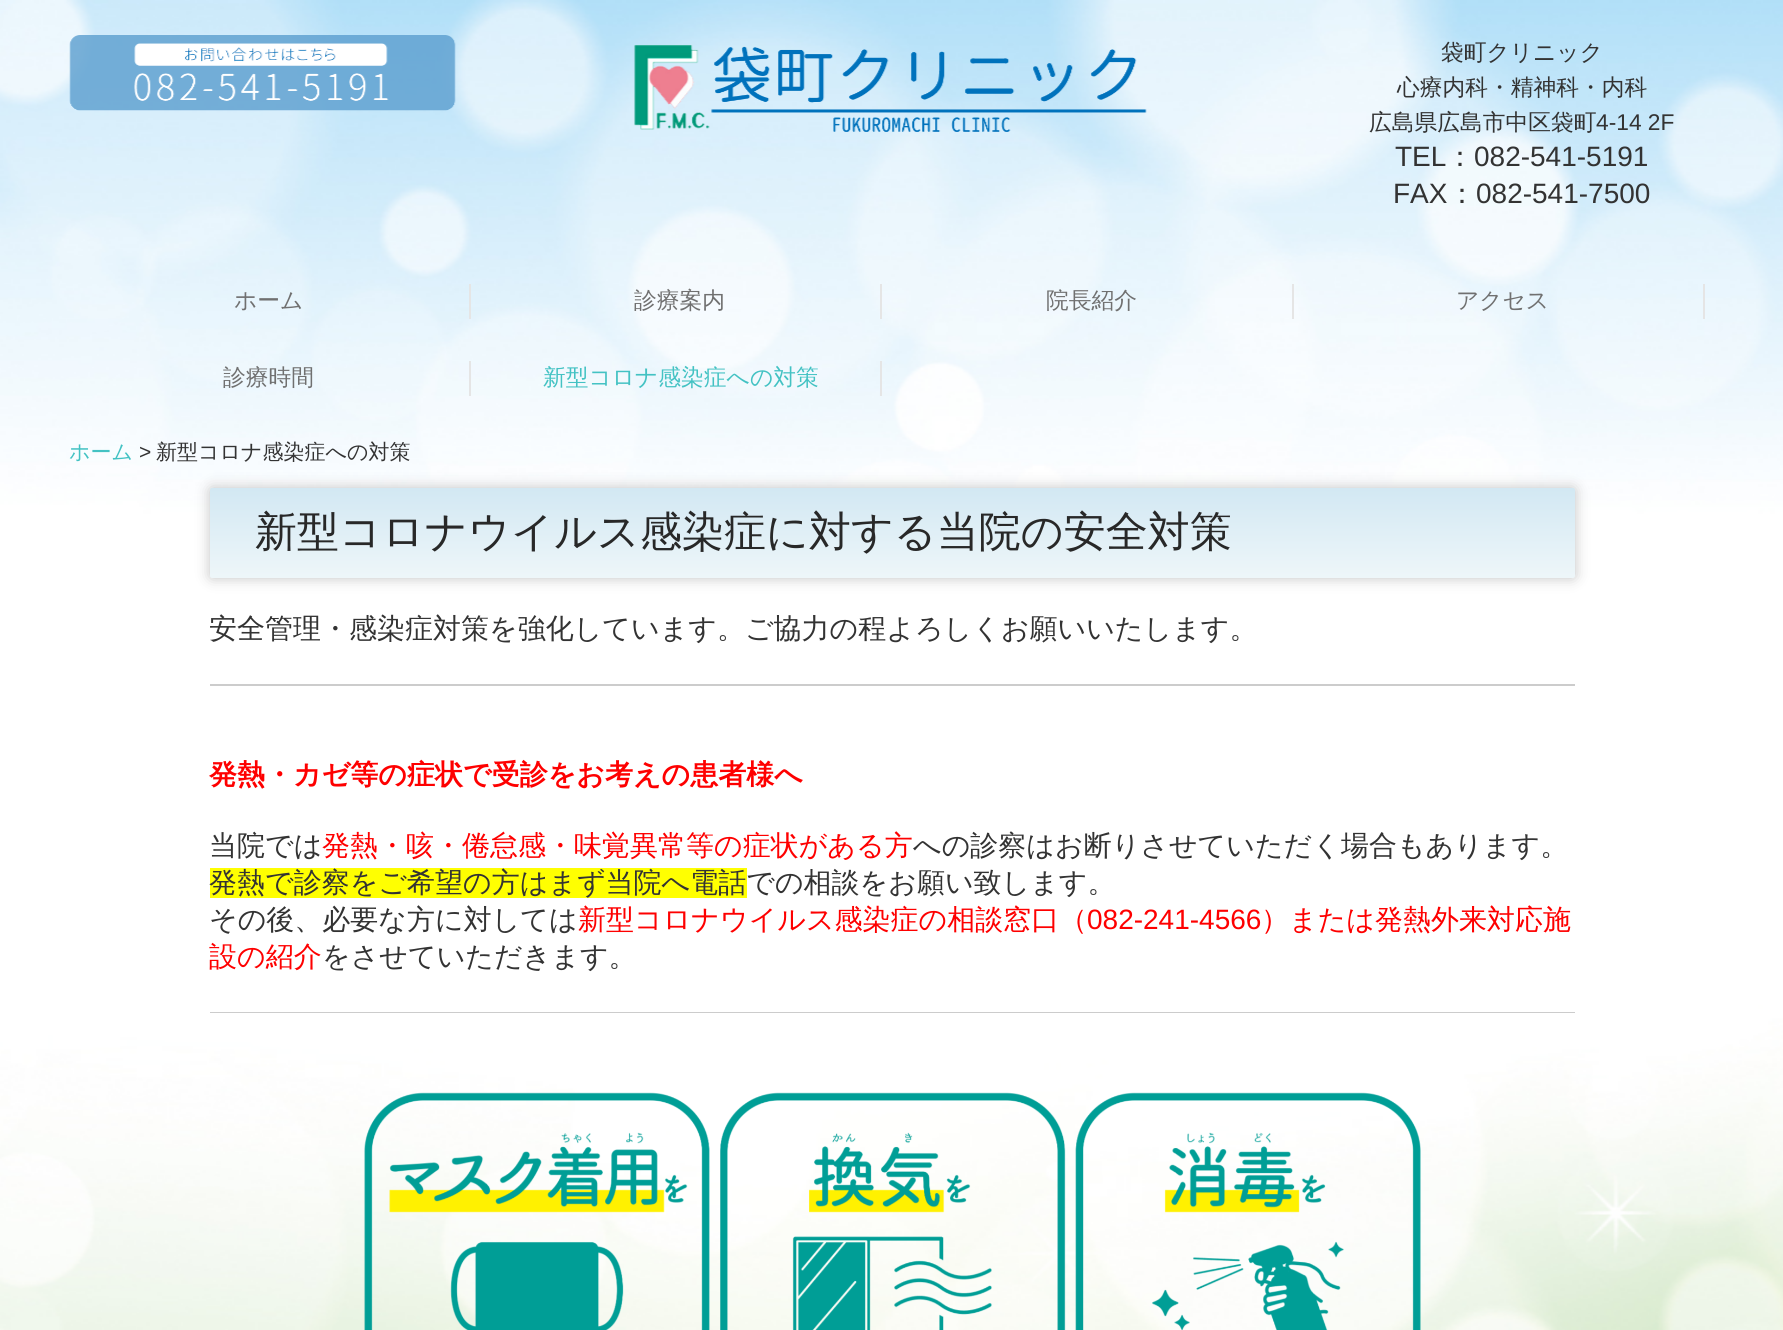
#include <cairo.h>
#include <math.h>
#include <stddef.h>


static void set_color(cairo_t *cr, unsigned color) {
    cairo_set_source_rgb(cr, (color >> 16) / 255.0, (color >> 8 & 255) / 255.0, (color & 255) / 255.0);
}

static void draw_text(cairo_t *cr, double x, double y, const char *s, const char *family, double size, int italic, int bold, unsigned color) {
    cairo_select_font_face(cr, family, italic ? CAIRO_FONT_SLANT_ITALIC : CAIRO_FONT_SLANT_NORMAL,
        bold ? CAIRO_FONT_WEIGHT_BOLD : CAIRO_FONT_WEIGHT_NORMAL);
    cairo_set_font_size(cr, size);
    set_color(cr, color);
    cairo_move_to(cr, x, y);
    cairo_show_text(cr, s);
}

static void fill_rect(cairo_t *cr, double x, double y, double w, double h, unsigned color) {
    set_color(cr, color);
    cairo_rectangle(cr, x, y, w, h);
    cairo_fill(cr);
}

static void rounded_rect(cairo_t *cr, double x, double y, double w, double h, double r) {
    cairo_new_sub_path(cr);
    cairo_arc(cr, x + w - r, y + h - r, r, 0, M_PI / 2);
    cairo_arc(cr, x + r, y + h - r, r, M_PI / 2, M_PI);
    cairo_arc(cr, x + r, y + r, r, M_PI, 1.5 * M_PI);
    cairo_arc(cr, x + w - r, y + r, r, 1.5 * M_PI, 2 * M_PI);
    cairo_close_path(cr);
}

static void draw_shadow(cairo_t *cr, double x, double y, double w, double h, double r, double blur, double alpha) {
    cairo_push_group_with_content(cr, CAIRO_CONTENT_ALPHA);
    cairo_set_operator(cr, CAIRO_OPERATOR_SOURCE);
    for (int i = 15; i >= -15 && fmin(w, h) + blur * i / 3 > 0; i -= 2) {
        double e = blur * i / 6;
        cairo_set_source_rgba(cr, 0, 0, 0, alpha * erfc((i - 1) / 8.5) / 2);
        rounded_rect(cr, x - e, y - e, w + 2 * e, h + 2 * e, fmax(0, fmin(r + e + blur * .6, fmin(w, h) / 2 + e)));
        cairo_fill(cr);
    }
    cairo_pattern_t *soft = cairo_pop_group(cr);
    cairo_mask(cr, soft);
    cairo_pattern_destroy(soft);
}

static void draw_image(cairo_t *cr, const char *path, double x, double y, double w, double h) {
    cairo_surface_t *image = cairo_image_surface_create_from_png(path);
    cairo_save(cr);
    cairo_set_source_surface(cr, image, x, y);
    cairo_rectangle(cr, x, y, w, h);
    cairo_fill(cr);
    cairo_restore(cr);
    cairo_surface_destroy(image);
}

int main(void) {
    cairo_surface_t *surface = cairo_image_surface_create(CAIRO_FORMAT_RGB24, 1783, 1330);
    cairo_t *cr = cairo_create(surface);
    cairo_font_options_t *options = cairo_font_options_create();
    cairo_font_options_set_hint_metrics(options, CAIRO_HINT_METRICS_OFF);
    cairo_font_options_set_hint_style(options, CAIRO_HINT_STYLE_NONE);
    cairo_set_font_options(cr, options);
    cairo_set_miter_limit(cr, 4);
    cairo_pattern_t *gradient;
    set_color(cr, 0xFFFFFF);
    cairo_paint(cr);
    draw_image(cr, "assets/img1.png", 0, 0, 1783, 1330);
    draw_image(cr, "assets/img2.png", 69, 35, 387, 76);
    draw_image(cr, "assets/img3.png", 634, 45, 513, 87);
    draw_text(cr, 1441, 60, "袋町クリニック", "WenQuanYi Zen Hei Medium", 22.75, 0, 0, 0x333333);
    draw_text(cr, 1397, 95, "心療内科・精神科・内科", "WenQuanYi Zen Hei Medium", 22.75, 0, 0, 0x333333);
    draw_text(cr, 1369, 130, "広島県広島市中区袋町", "WenQuanYi Zen Hei Medium", 22.75, 0, 0, 0x333333);
    draw_text(cr, 1596, 130, "4-14 2F", "Liberation Sans", 22.75, 0, 0, 0x333333);
    draw_text(cr, 1395, 166, "TEL", "Liberation Sans", 28, 0, 0, 0x333333);
    draw_text(cr, 1446, 166, "：", "WenQuanYi Zen Hei Medium", 28, 0, 0, 0x333333);
    draw_text(cr, 1474, 166, "082-541-5191", "Liberation Sans", 28, 0, 0, 0x333333);
    draw_text(cr, 1393, 203, "FAX", "Liberation Sans", 28, 0, 0, 0x333333);
    draw_text(cr, 1448, 203, "：", "WenQuanYi Zen Hei Medium", 28, 0, 0, 0x333333);
    draw_text(cr, 1476, 203, "082-541-7500", "Liberation Sans", 28, 0, 0, 0x333333);
    fill_rect(cr, 469, 284, 2, 35, 0xE5E5E5);
    draw_text(cr, 234, 308, "ホーム", "WenQuanYi Zen Hei Medium", 22.75, 0, 0, 0x707070);
    fill_rect(cr, 880, 284, 2, 35, 0xE5E5E5);
    draw_text(cr, 634, 308, "診療案内", "WenQuanYi Zen Hei Medium", 22.75, 0, 0, 0x707070);
    fill_rect(cr, 1292, 284, 2, 35, 0xE5E5E5);
    draw_text(cr, 1046, 308, "院長紹介", "WenQuanYi Zen Hei Medium", 22.75, 0, 0, 0x707070);
    fill_rect(cr, 1703, 284, 2, 35, 0xE5E5E5);
    draw_text(cr, 1456, 308, "アクセス", "WenQuanYi Zen Hei Medium", 22.75, 0, 0, 0x707070);
    fill_rect(cr, 469, 361, 2, 35, 0xE5E5E5);
    draw_text(cr, 223, 385, "診療時間", "WenQuanYi Zen Hei Medium", 22.75, 0, 0, 0x707070);
    fill_rect(cr, 880, 361, 2, 35, 0xE5E5E5);
    draw_text(cr, 543, 385, "新型コロナ感染症への対策", "WenQuanYi Zen Hei Medium", 22.75, 0, 0, 0x43C2C3);
    draw_text(cr, 69, 459, "ホーム", "WenQuanYi Zen Hei Medium", 21, 0, 0, 0x43C2C3);
    draw_text(cr, 139, 459, ">", "Liberation Sans", 21, 0, 0, 0x333333);
    draw_text(cr, 156, 459, "新型コロナ感染症への対策", "WenQuanYi Zen Hei Medium", 21, 0, 0, 0x333333);
    set_color(cr, 0xC3C3C3);
    draw_shadow(cr, 210, 488, 1365, 90, 2, 7, 1);
    gradient = cairo_pattern_create_linear(893, 488, 893, 578);
    cairo_pattern_add_color_stop_rgba(gradient, 0, 0.824, 0.91, 0.953, 1);
    cairo_pattern_add_color_stop_rgba(gradient, 1, 0.933, 0.965, 0.976, 1);
    cairo_set_source(cr, gradient);
    cairo_pattern_destroy(gradient);
    rounded_rect(cr, 210, 488, 1365, 90, 2);
    cairo_fill(cr);
    draw_text(cr, 255, 546, "新型コロナウイルス感染症に対する当院の安全対策", "WenQuanYi Zen Hei Medium", 42, 0, 0, 0x282828);
    draw_text(cr, 209, 638, "安全管理・感染症対策を強化しています。ご協力の程よろしくお願いいたします。", "WenQuanYi Zen Hei Medium", 28, 0, 0, 0x333333);
    fill_rect(cr, 210, 684, 1365, 2, 0xCCCCCC);
    draw_text(cr, 209, 784, "発熱・カゼ等の症状で受診をお考えの患者様へ", "WenQuanYi Zen Hei", 28, 0, 1, 0xFE0000);
    draw_text(cr, 209, 855, "当院では", "WenQuanYi Zen Hei Medium", 28, 0, 0, 0x333333);
    draw_text(cr, 322, 855, "発熱・咳・倦怠感・味覚異常等の症状がある方", "WenQuanYi Zen Hei Medium", 28, 0, 0, 0xFE0000);
    draw_text(cr, 913, 855, "への診察はお断りさせていただく場合もあります。", "WenQuanYi Zen Hei Medium", 28, 0, 0, 0x333333);
    fill_rect(cr, 210, 868, 537, 30, 0xFFFF01);
    draw_text(cr, 209, 892, "発熱で診察をご希望の方はまず当院へ電話での相談をお願い致します。", "WenQuanYi Zen Hei Medium", 28, 0, 0, 0x333333);
    draw_text(cr, 209, 929, "その後、必要な方に対しては", "WenQuanYi Zen Hei Medium", 28, 0, 0, 0x333333);
    draw_text(cr, 578, 929, "新型コロナウイルス感染症の相談窓口（", "WenQuanYi Zen Hei Medium", 28, 0, 0, 0xFE0000);
    draw_text(cr, 1087, 929, "082-241-4566", "Liberation Sans", 28, 0, 0, 0xFE0000);
    draw_text(cr, 1261, 929, "）または発熱外来対応施", "WenQuanYi Zen Hei Medium", 28, 0, 0, 0xFE0000);
    draw_text(cr, 209, 966, "設の紹介", "WenQuanYi Zen Hei Medium", 28, 0, 0, 0xFE0000);
    draw_text(cr, 322, 966, "をさせていただきます。", "WenQuanYi Zen Hei Medium", 28, 0, 0, 0x333333);
    fill_rect(cr, 210, 1012, 1365, 1, 0xCCCCCC);
    draw_image(cr, "assets/img4.png", 364, 1092, 1057, 238);
    cairo_surface_write_to_png(surface, "output.png");
    cairo_font_options_destroy(options);
    cairo_destroy(cr);
    cairo_surface_destroy(surface);
    return 0;
}
